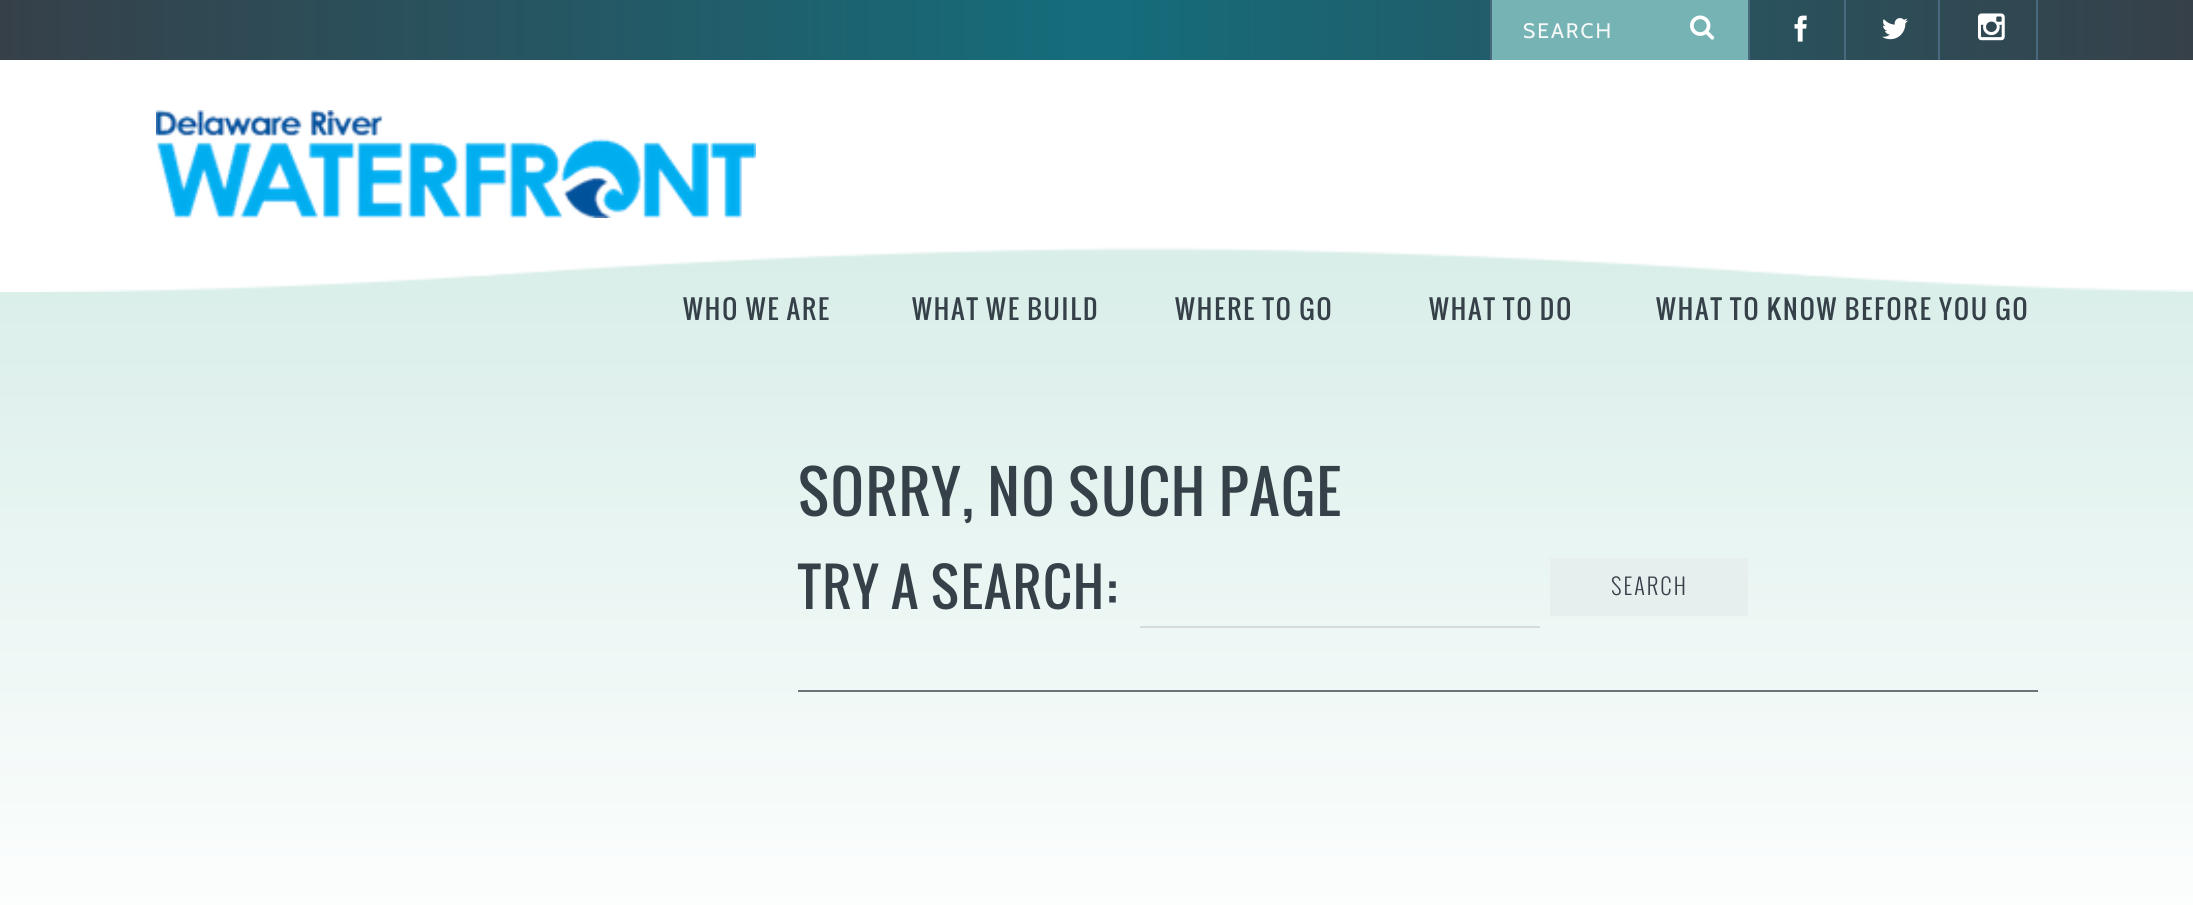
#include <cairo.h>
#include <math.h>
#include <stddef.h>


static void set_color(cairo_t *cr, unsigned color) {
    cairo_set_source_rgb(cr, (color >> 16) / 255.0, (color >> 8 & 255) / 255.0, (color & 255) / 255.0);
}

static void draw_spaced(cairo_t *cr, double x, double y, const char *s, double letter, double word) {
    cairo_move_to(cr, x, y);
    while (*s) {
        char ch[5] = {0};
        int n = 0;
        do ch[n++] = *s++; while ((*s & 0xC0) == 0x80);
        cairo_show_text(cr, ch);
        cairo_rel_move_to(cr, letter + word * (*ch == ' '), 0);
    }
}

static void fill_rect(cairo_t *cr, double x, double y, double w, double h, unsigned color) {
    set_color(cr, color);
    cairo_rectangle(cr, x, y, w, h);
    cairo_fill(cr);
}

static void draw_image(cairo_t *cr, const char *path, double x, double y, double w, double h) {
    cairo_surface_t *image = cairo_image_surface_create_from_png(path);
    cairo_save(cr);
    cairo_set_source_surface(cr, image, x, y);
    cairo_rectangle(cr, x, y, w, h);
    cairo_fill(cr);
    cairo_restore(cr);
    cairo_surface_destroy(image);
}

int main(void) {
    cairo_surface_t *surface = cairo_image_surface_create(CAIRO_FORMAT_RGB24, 2193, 905);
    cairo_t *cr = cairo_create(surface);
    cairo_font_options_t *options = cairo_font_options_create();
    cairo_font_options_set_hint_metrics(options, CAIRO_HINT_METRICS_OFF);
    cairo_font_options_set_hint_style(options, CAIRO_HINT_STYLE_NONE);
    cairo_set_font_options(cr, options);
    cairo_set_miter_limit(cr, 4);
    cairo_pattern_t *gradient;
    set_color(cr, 0xFFFFFF);
    cairo_paint(cr);
    gradient = cairo_pattern_create_linear(1097, 0, 1097, 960);
    cairo_pattern_add_color_stop_rgba(gradient, 0, 1, 1, 1, 1);
    cairo_pattern_add_color_stop_rgba(gradient, 0.27, 0.851, 0.933, 0.914, 1);
    cairo_pattern_add_color_stop_rgba(gradient, 1, 1, 1, 1, 1);
    cairo_set_source(cr, gradient);
    cairo_pattern_destroy(gradient);
    cairo_rectangle(cr, 0, 247, 2193, 658);
    cairo_fill(cr);
    gradient = cairo_pattern_create_linear(0, 30, 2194, 30);
    cairo_pattern_add_color_stop_rgba(gradient, 0, 0.212, 0.251, 0.286, 1);
    cairo_pattern_add_color_stop_rgba(gradient, 0.5, 0.082, 0.427, 0.486, 1);
    cairo_pattern_add_color_stop_rgba(gradient, 1, 0.212, 0.251, 0.286, 1);
    cairo_set_source(cr, gradient);
    cairo_pattern_destroy(gradient);
    cairo_rectangle(cr, 0, 0, 2193, 60);
    cairo_fill(cr);
    fill_rect(cr, 1492, 0, 256, 60, 0x76B3B5);
    fill_rect(cr, 1748, 0, 2, 60, 0x49697E);
    fill_rect(cr, 1490, 0, 2, 60, 0x49697E);
    cairo_select_font_face(cr, "Cabin", CAIRO_FONT_SLANT_NORMAL, CAIRO_FONT_WEIGHT_NORMAL);
    cairo_set_font_size(cr, 21);
    set_color(cr, 0xF7F9F9);
    draw_spaced(cr, 1523, 38, "SEARCH", 2, 0);
    draw_image(cr, "assets/img1.png", 1690, 15, 25, 25);
    fill_rect(cr, 1844, 0, 2, 60, 0x49697E);
    draw_image(cr, "assets/img2.png", 1794, 15, 13, 27);
    fill_rect(cr, 1938, 0, 2, 60, 0x49697E);
    draw_image(cr, "assets/img3.png", 1882, 18, 26, 22);
    fill_rect(cr, 2036, 0, 2, 60, 0x49697E);
    draw_image(cr, "assets/img4.png", 1978, 13, 27, 28);
    draw_image(cr, "assets/img5.png", 0, 220, 2193, 72);
    draw_image(cr, "assets/img6.png", 156, 110, 600, 108);
    cairo_select_font_face(cr, "Oswald", CAIRO_FONT_SLANT_NORMAL, CAIRO_FONT_WEIGHT_NORMAL);
    cairo_set_font_size(cr, 26);
    set_color(cr, 0x364049);
    draw_spaced(cr, 683, 320, "WHO WE ARE", 2, 0);
    draw_spaced(cr, 912, 320, "WHAT WE BUILD", 2, 0);
    draw_spaced(cr, 1175, 320, "WHERE TO GO", 2, 0);
    draw_spaced(cr, 1429, 320, "WHAT TO DO", 2, 0);
    draw_spaced(cr, 1656, 320, "WHAT TO KNOW BEFORE YOU GO", 2, 0);
    fill_rect(cr, 798, 690, 1240, 2, 0x6C7477);
    cairo_set_font_size(cr, 57.25);
    set_color(cr, 0x364049);
    draw_spaced(cr, 798, 516, "SORRY, NO SUCH PAGE", 2, 0);
    cairo_set_font_size(cr, 52);
    draw_spaced(cr, 798, 609, "TRY A SEARCH:", 2, 0);
    fill_rect(cr, 1550, 558, 198, 58, 0xE6EFED);
    cairo_select_font_face(cr, "Oswald Light", CAIRO_FONT_SLANT_NORMAL, CAIRO_FONT_WEIGHT_NORMAL);
    cairo_set_font_size(cr, 22);
    set_color(cr, 0x364049);
    draw_spaced(cr, 1611, 595, "SEARCH", 2, 0);
    fill_rect(cr, 1140, 626, 400, 2, 0xD7D9DA);
    cairo_surface_write_to_png(surface, "output.png");
    cairo_font_options_destroy(options);
    cairo_destroy(cr);
    cairo_surface_destroy(surface);
    return 0;
}
